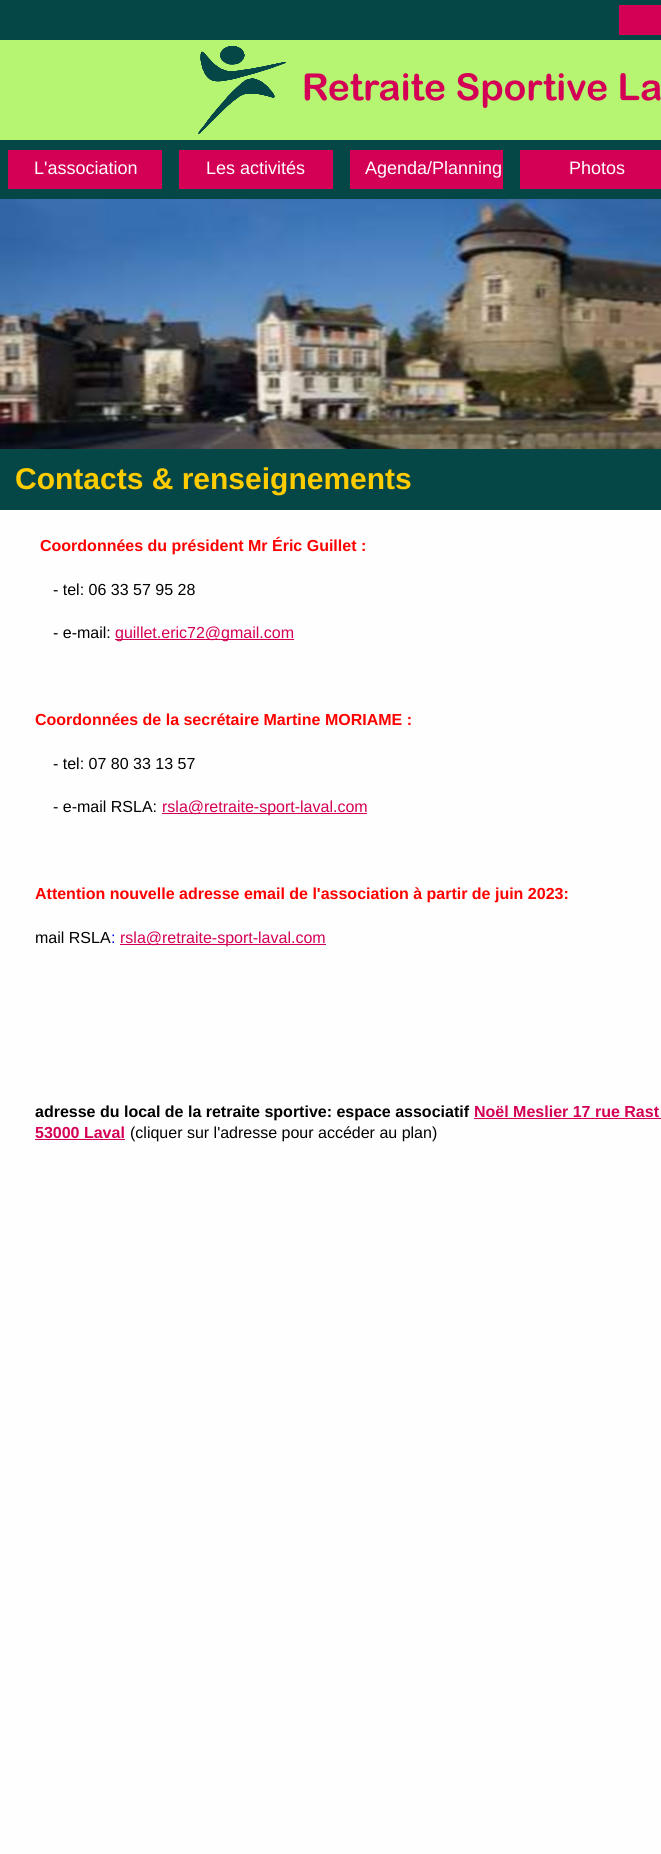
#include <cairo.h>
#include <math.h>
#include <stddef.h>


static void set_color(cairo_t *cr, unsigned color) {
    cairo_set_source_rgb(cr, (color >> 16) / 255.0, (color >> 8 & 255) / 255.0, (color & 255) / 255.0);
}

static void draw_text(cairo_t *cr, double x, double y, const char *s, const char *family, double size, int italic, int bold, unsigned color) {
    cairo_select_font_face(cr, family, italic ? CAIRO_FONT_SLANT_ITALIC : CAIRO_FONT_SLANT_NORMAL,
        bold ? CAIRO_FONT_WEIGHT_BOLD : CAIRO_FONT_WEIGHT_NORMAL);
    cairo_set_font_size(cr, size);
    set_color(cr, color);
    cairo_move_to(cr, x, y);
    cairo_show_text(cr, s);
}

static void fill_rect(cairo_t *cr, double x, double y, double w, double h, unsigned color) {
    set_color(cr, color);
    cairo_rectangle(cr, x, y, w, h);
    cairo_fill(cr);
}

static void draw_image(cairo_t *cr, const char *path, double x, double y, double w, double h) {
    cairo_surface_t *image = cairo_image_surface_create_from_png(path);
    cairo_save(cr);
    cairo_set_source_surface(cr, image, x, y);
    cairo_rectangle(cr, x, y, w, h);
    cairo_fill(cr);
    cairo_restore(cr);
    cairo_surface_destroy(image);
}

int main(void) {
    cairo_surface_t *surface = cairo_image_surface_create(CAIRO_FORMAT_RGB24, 661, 1854);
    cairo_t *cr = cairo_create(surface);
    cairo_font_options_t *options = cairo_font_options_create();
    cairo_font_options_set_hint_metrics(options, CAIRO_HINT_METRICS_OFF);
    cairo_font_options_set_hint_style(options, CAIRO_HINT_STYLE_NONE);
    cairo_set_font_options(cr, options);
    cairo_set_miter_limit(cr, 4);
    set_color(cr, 0xFEFEFE);
    cairo_paint(cr);
    fill_rect(cr, 0, 0, 661, 40, 0x054747);
    fill_rect(cr, 619, 5, 42, 30, 0xD40055);
    fill_rect(cr, 0, 40, 661, 100, 0xB5F571);
    draw_image(cr, "assets/img1.png", 198, 46, 463, 88);
    fill_rect(cr, 0, 140, 661, 59, 0x054747);
    fill_rect(cr, 8, 150, 154, 39, 0xD40055);
    draw_text(cr, 34, 174, "L'association", "Liberation Sans", 18, 0, 0, 0xFFFFFF);
    fill_rect(cr, 179, 150, 154, 39, 0xD40055);
    draw_text(cr, 206, 174, "Les activités", "Liberation Sans", 18, 0, 0, 0xFFFFFF);
    fill_rect(cr, 350, 150, 153, 39, 0xD40055);
    draw_text(cr, 365, 174, "Agenda/Planning", "Liberation Sans", 18, 0, 0, 0xFFFFFF);
    fill_rect(cr, 520, 150, 141, 39, 0xD40055);
    draw_text(cr, 569, 174, "Photos", "Liberation Sans", 18, 0, 0, 0xFFFFFF);
    draw_image(cr, "assets/img2.png", 0, 199, 661, 250);
    fill_rect(cr, 0, 449, 661, 61, 0x054747);
    draw_text(cr, 15, 489, "Contacts & renseignements", "Liberation Sans", 30, 0, 1, 0xFFCC00);
    draw_text(cr, 40, 551, "Coordonnées du président Mr Éric Guillet :", "Liberation Sans", 16, 0, 1, 0xFF0000);
    draw_text(cr, 53, 595, "- tel: 06 33 57 95 28", "Liberation Sans", 16, 0, 0, 0x000000);
    draw_text(cr, 53, 638, "- e-mail:", "Liberation Sans", 16, 0, 0, 0x000000);
    fill_rect(cr, 115, 639, 179, 1, 0xD40055);
    draw_text(cr, 115, 638, "guillet.eric72@gmail.com", "Liberation Sans", 16, 0, 0, 0xD40055);
    draw_text(cr, 35, 725, "Coordonnées de la secrétaire Martine MORIAME :", "Liberation Sans", 16, 0, 1, 0xFF0000);
    draw_text(cr, 53, 769, "- tel: 07 80 33 13 57", "Liberation Sans", 16, 0, 0, 0x000000);
    draw_text(cr, 53, 812, "- e-mail RSLA:", "Liberation Sans", 16, 0, 0, 0x000000);
    fill_rect(cr, 162, 813, 205, 1, 0xD40055);
    draw_text(cr, 162, 812, "rsla@retraite-sport-laval.com", "Liberation Sans", 16, 0, 0, 0xD40055);
    draw_text(cr, 35, 899, "Attention nouvelle adresse email de l'association à partir de juin 2023:", "Liberation Sans", 16, 0, 1, 0xFF0000);
    draw_text(cr, 35, 943, "mail RSLA", "Liberation Sans", 16, 0, 0, 0x000000);
    draw_text(cr, 111, 943, ":", "Liberation Sans", 16, 0, 0, 0x0000FF);
    fill_rect(cr, 120, 944, 206, 1, 0xD40055);
    draw_text(cr, 120, 943, "rsla@retraite-sport-laval.com", "Liberation Sans", 16, 0, 0, 0xD40055);
    draw_text(cr, 35, 1117, "adresse du local de la retraite sportive: espace associatif", "Liberation Sans", 16, 0, 1, 0x000000);
    draw_text(cr, 474, 1117, "Noël Meslier 17 rue Rast", "Liberation Sans", 16, 0, 1, 0xD40055);
    fill_rect(cr, 474, 1118, 187, 1, 0xD40055);
    draw_text(cr, 35, 1138, "53000 Laval", "Liberation Sans", 16, 0, 1, 0xD40055);
    fill_rect(cr, 35, 1139, 90, 1, 0xD40055);
    draw_text(cr, 130, 1138, "(cliquer sur l'adresse pour accéder au plan)", "Liberation Sans", 16, 0, 0, 0x000000);
    cairo_surface_write_to_png(surface, "output.png");
    cairo_font_options_destroy(options);
    cairo_destroy(cr);
    cairo_surface_destroy(surface);
    return 0;
}
